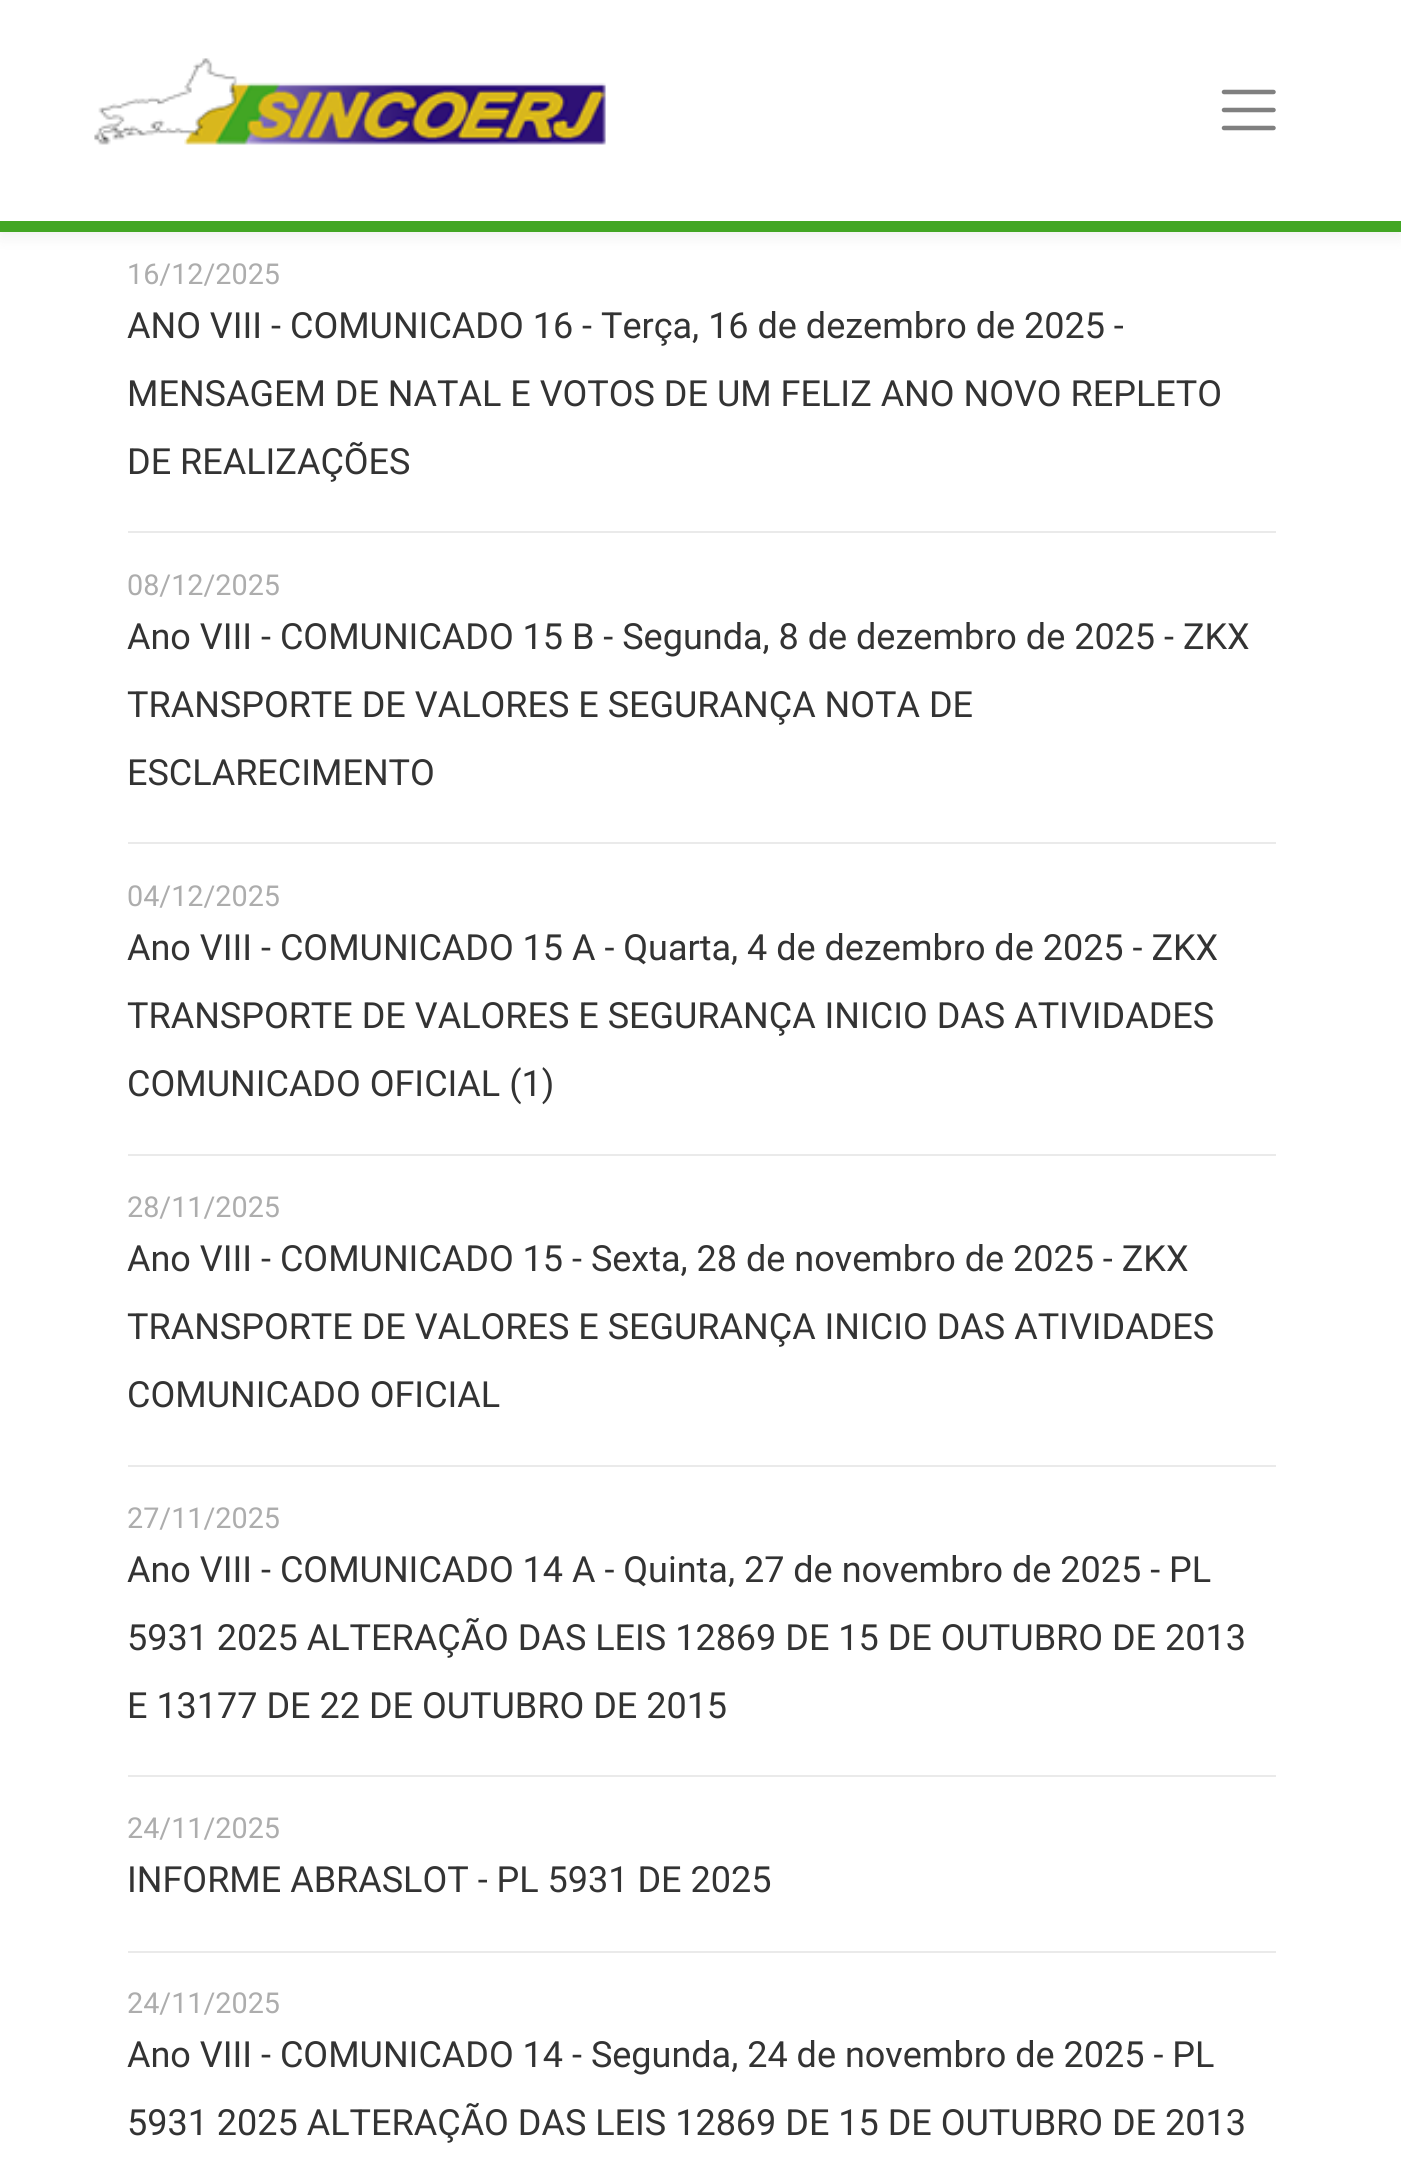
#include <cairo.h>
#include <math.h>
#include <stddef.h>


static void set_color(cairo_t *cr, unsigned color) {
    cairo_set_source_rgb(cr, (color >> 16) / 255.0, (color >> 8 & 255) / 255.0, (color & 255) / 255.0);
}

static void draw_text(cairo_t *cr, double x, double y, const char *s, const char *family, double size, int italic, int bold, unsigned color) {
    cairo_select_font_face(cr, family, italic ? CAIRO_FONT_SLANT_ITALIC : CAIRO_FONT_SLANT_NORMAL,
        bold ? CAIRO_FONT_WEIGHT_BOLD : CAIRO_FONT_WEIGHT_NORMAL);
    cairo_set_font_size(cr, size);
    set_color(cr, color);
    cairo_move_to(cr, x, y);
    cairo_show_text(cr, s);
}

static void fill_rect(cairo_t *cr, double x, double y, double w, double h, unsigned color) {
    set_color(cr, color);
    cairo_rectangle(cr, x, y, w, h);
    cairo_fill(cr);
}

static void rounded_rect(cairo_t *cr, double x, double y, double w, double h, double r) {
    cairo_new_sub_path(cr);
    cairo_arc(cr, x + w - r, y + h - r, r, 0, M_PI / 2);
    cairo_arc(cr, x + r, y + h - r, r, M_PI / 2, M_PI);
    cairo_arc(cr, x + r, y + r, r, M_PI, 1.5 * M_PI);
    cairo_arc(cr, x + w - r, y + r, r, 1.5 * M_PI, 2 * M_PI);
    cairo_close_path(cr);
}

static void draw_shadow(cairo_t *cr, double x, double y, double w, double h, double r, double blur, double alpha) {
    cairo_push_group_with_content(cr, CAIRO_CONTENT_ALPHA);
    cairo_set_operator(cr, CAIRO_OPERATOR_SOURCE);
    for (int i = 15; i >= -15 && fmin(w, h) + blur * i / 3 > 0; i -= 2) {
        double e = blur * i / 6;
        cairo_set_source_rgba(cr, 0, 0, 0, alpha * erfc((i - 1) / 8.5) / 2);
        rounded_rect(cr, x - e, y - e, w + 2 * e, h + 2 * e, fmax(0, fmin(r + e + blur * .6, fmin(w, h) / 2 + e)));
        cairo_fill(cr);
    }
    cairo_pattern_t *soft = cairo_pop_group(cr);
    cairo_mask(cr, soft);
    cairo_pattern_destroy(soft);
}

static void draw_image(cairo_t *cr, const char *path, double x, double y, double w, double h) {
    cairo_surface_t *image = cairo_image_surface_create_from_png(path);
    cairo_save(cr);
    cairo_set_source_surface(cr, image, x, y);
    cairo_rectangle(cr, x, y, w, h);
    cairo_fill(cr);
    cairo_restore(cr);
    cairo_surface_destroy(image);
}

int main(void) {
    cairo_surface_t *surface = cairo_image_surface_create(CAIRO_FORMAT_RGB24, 1401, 2169);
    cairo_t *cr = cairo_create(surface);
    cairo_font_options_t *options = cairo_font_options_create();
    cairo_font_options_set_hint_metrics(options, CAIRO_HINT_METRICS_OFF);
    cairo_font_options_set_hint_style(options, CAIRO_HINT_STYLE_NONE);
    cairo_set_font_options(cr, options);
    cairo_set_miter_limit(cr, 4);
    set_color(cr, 0xFFFFFF);
    cairo_paint(cr);
    set_color(cr, 0x000000);
    draw_shadow(cr, 0, 5, 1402, 231, 0, 9, 0.07);
    fill_rect(cr, 0, 0, 1401, 221, 0xFFFFFF);
    fill_rect(cr, 0, 221, 1401, 11, 0x42A624);
    draw_image(cr, "assets/img1.png", 94, 58, 512, 87);
    cairo_new_path(cr);
    cairo_move_to(cr, 1224, 92);
    cairo_line_to(cr, 1273.5, 92);
    cairo_move_to(cr, 1224, 110);
    cairo_line_to(cr, 1273.5, 110);
    cairo_move_to(cr, 1224, 128);
    cairo_line_to(cr, 1273.5, 128);
    set_color(cr, 0x808080);
    cairo_set_line_width(cr, 4.5);
    cairo_set_line_cap(cr, CAIRO_LINE_CAP_ROUND);
    cairo_stroke(cr);
    fill_rect(cr, 128, 531, 1148, 2, 0xEAEAEA);
    draw_text(cr, 127, 284, "16/12/2025", "Roboto", 28.75, 0, 0, 0xADADAD);
    draw_text(cr, 127, 338, "ANO VIII - COMUNICADO 16 - Terça, 16 de dezembro de 2025 -", "Roboto", 36, 0, 0, 0x333333);
    draw_text(cr, 127, 406, "MENSAGEM DE NATAL E VOTOS DE UM FELIZ ANO NOVO REPLETO", "Roboto", 36, 0, 0, 0x333333);
    draw_text(cr, 127, 474, "DE REALIZAÇÕES", "Roboto", 36, 0, 0, 0x333333);
    fill_rect(cr, 128, 842, 1148, 2, 0xEAEAEA);
    draw_text(cr, 127, 595, "08/12/2025", "Roboto", 28.75, 0, 0, 0xADADAD);
    draw_text(cr, 127, 649, "Ano VIII - COMUNICADO 15 B - Segunda, 8 de dezembro de 2025 - ZKX", "Roboto", 36, 0, 0, 0x333333);
    draw_text(cr, 127, 717, "TRANSPORTE DE VALORES E SEGURANÇA NOTA DE", "Roboto", 36, 0, 0, 0x333333);
    draw_text(cr, 127, 785, "ESCLARECIMENTO", "Roboto", 36, 0, 0, 0x333333);
    fill_rect(cr, 128, 1154, 1148, 2, 0xEAEAEA);
    draw_text(cr, 127, 906, "04/12/2025", "Roboto", 28.75, 0, 0, 0xADADAD);
    draw_text(cr, 127, 960, "Ano VIII - COMUNICADO 15 A - Quarta, 4 de dezembro de 2025 - ZKX", "Roboto", 36, 0, 0, 0x333333);
    draw_text(cr, 127, 1028, "TRANSPORTE DE VALORES E SEGURANÇA INICIO DAS ATIVIDADES", "Roboto", 36, 0, 0, 0x333333);
    draw_text(cr, 127, 1096, "COMUNICADO OFICIAL (1)", "Roboto", 36, 0, 0, 0x333333);
    fill_rect(cr, 128, 1465, 1148, 2, 0xEAEAEA);
    draw_text(cr, 127, 1217, "28/11/2025", "Roboto", 28.75, 0, 0, 0xADADAD);
    draw_text(cr, 127, 1271, "Ano VIII - COMUNICADO 15 - Sexta, 28 de novembro de 2025 - ZKX", "Roboto", 36, 0, 0, 0x333333);
    draw_text(cr, 127, 1339, "TRANSPORTE DE VALORES E SEGURANÇA INICIO DAS ATIVIDADES", "Roboto", 36, 0, 0, 0x333333);
    draw_text(cr, 127, 1407, "COMUNICADO OFICIAL", "Roboto", 36, 0, 0, 0x333333);
    fill_rect(cr, 128, 1775, 1148, 2, 0xEAEAEA);
    draw_text(cr, 127, 1528, "27/11/2025", "Roboto", 28.75, 0, 0, 0xADADAD);
    draw_text(cr, 127, 1582, "Ano VIII - COMUNICADO 14 A - Quinta, 27 de novembro de 2025 - PL", "Roboto", 36, 0, 0, 0x333333);
    draw_text(cr, 127, 1650, "5931 2025 ALTERAÇÃO DAS LEIS 12869 DE 15 DE OUTUBRO DE 2013", "Roboto", 36, 0, 0, 0x333333);
    draw_text(cr, 127, 1718, "E 13177 DE 22 DE OUTUBRO DE 2015", "Roboto", 36, 0, 0, 0x333333);
    fill_rect(cr, 128, 1951, 1148, 2, 0xEAEAEA);
    draw_text(cr, 127, 1838, "24/11/2025", "Roboto", 28.75, 0, 0, 0xADADAD);
    draw_text(cr, 127, 1892, "INFORME ABRASLOT - PL 5931 DE 2025", "Roboto", 36, 0, 0, 0x333333);
    draw_text(cr, 127, 2013, "24/11/2025", "Roboto", 28.75, 0, 0, 0xADADAD);
    draw_text(cr, 127, 2067, "Ano VIII - COMUNICADO 14 - Segunda, 24 de novembro de 2025 - PL", "Roboto", 36, 0, 0, 0x333333);
    draw_text(cr, 127, 2135, "5931 2025 ALTERAÇÃO DAS LEIS 12869 DE 15 DE OUTUBRO DE 2013", "Roboto", 36, 0, 0, 0x333333);
    cairo_surface_write_to_png(surface, "output.png");
    cairo_font_options_destroy(options);
    cairo_destroy(cr);
    cairo_surface_destroy(surface);
    return 0;
}
